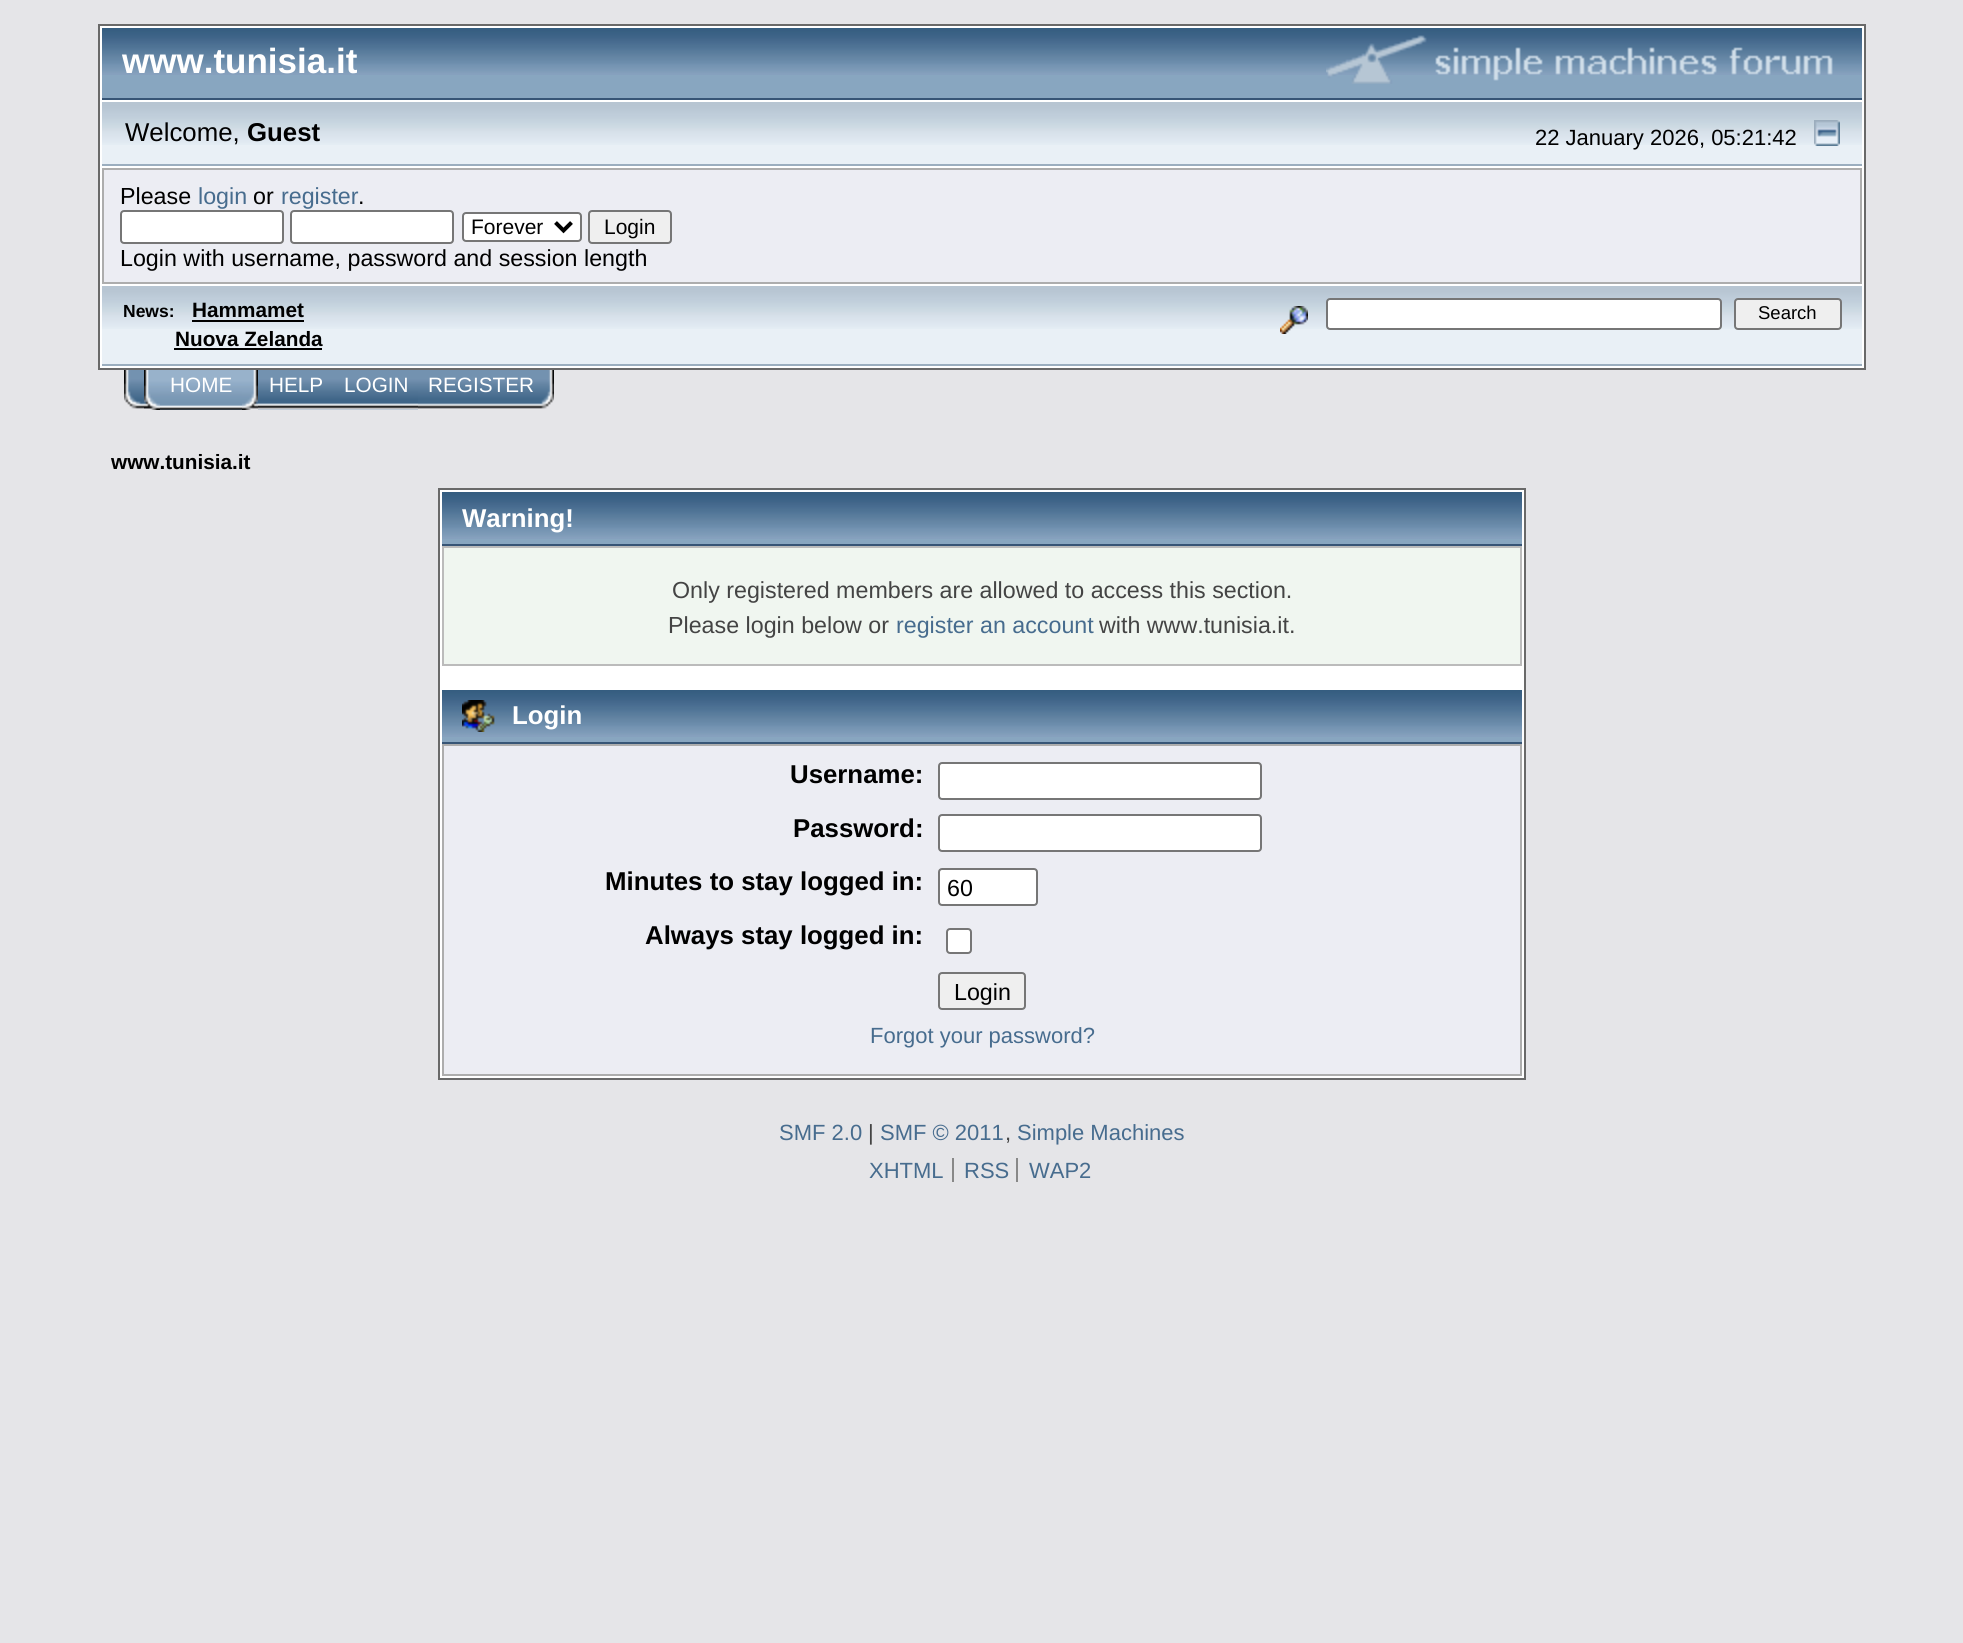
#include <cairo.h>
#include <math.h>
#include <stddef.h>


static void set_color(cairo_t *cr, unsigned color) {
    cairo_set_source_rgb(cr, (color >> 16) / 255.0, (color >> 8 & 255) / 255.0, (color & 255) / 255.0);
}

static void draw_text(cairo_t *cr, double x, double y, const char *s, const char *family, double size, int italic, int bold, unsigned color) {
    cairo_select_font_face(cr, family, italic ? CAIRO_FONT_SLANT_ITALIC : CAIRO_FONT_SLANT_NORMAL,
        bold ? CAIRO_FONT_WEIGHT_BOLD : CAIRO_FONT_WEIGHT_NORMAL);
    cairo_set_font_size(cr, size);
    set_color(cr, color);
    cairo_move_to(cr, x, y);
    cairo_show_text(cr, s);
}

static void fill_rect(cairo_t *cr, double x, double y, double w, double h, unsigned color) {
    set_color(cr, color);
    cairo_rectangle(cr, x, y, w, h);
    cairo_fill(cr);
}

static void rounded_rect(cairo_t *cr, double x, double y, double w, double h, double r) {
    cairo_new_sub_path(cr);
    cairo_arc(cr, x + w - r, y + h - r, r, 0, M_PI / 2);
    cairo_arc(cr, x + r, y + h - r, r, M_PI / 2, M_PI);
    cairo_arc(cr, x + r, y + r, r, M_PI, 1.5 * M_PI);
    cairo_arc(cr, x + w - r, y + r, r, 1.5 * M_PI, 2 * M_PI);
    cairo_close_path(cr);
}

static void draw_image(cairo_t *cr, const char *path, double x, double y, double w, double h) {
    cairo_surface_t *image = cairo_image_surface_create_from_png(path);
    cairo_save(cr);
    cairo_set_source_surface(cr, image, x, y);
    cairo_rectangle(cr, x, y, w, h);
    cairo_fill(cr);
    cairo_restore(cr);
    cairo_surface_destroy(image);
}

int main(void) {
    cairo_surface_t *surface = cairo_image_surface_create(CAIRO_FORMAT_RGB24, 1963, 1643);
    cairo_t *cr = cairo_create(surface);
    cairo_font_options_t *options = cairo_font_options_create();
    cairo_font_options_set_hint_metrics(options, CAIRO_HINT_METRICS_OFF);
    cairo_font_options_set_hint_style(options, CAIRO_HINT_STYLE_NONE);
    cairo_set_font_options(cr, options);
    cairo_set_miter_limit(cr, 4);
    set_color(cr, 0xE5E5E8);
    cairo_paint(cr);
    set_color(cr, 0xFFFFFF);
    cairo_rectangle(cr, 99, 25, 1766, 344);
    cairo_fill_preserve(cr);
    set_color(cr, 0x696969);
    cairo_stroke(cr);
    fill_rect(cr, 102, 75, 1760, 23, 0x88A6C0);
    draw_image(cr, "assets/img1.png", 102, 28, 1760, 47);
    fill_rect(cr, 102, 98, 1760, 2, 0x375576);
    draw_text(cr, 122, 73, "www.tunisia.it", "Liberation Sans", 35, 0, 1, 0xFFFFFF);
    draw_image(cr, "assets/img2.png", 1326, 35, 507, 49);
    fill_rect(cr, 102, 145, 1760, 19, 0xE9F0F6);
    draw_image(cr, "assets/img3.png", 102, 102, 1760, 43);
    fill_rect(cr, 102, 164, 1760, 2, 0x9BAEBF);
    draw_text(cr, 125, 141, "Welcome,", "Liberation Sans", 25.8, 0, 0, 0x000000);
    draw_text(cr, 247, 141, "Guest", "Liberation Sans", 25.8, 0, 1, 0x000000);
    draw_text(cr, 1535, 145, "22 January 2026, 05:21:42", "Liberation Sans", 22, 0, 0, 0x000000);
    draw_image(cr, "assets/img4.png", 1814, 120, 26, 26);
    fill_rect(cr, 102, 168, 1760, 116, 0xADADAD);
    fill_rect(cr, 104, 170, 1756, 112, 0xECEDF3);
    draw_text(cr, 120, 204, "Please", "Liberation Sans", 23.25, 0, 0, 0x000000);
    draw_text(cr, 198, 204, "login", "Liberation Sans", 23.25, 0, 0, 0x476C8E);
    draw_text(cr, 253, 204, "or", "Liberation Sans", 23.25, 0, 0, 0x000000);
    draw_text(cr, 281, 204, "register", "Liberation Sans", 23.25, 0, 0, 0x476C8E);
    draw_text(cr, 358, 204, ".", "Liberation Sans", 23.25, 0, 0, 0x000000);
    set_color(cr, 0xFFFFFF);
    rounded_rect(cr, 121, 211, 162, 32, 3);
    cairo_fill_preserve(cr);
    set_color(cr, 0x767676);
    cairo_stroke(cr);
    set_color(cr, 0xFFFFFF);
    rounded_rect(cr, 291, 211, 162, 32, 3);
    cairo_fill_preserve(cr);
    set_color(cr, 0x767676);
    cairo_stroke(cr);
    set_color(cr, 0xFFFFFF);
    rounded_rect(cr, 463, 213, 118, 28, 3);
    cairo_fill_preserve(cr);
    set_color(cr, 0x767676);
    cairo_stroke(cr);
    cairo_new_path(cr);
    cairo_move_to(cr, 555.5, 222.5);
    cairo_line_to(cr, 563.5, 230.5);
    cairo_line_to(cr, 571.5, 222.5);
    set_color(cr, 0x000000);
    cairo_set_line_width(cr, 4);
    cairo_stroke(cr);
    draw_text(cr, 471, 234, "Forever", "Liberation Sans", 21, 0, 0, 0x000000);
    set_color(cr, 0xEFEFEF);
    rounded_rect(cr, 589, 211, 82, 32, 3);
    cairo_fill_preserve(cr);
    set_color(cr, 0x767676);
    cairo_set_line_width(cr, 2);
    cairo_stroke(cr);
    draw_text(cr, 604, 234, "Login", "Liberation Sans", 21, 0, 0, 0x000000);
    draw_text(cr, 120, 266, "Login with username, password and session length", "Liberation Sans", 23.25, 0, 0, 0x000000);
    fill_rect(cr, 102, 329, 1760, 35, 0xE9F0F6);
    draw_image(cr, "assets/img3.png", 102, 286, 1760, 43);
    fill_rect(cr, 102, 364, 1760, 2, 0x9BAEBF);
    draw_text(cr, 123, 317, "News:", "Liberation Sans", 17.5, 0, 1, 0x000000);
    draw_text(cr, 192, 317, "Hammamet", "Liberation Sans", 20.75, 0, 1, 0x000000);
    fill_rect(cr, 192, 320, 112, 2, 0x000000);
    draw_text(cr, 175, 346, "Nuova Zelanda", "Liberation Sans", 20.75, 0, 1, 0x000000);
    fill_rect(cr, 174, 348, 148, 2, 0x000000);
    draw_image(cr, "assets/img5.png", 1280, 306, 28, 28);
    set_color(cr, 0xFFFFFF);
    rounded_rect(cr, 1327, 299, 394, 30, 3);
    cairo_fill_preserve(cr);
    set_color(cr, 0x767676);
    cairo_stroke(cr);
    set_color(cr, 0xEFEFEF);
    rounded_rect(cr, 1735, 299, 106, 30, 3);
    cairo_fill_preserve(cr);
    set_color(cr, 0x767676);
    cairo_stroke(cr);
    draw_text(cr, 1758, 319, "Search", "Liberation Sans", 18.5, 0, 0, 0x000000);
    draw_image(cr, "assets/img6.png", 124, 370, 29, 39);
    draw_image(cr, "assets/img7.png", 242, 370, 16, 40);
    draw_image(cr, "assets/img8.png", 144, 370, 16, 40);
    draw_image(cr, "assets/img9.png", 160, 370, 82, 40);
    draw_text(cr, 170, 392, "HOME", "Liberation Sans", 20.75, 0, 0, 0xFFFFFF);
    draw_image(cr, "assets/img10.png", 258, 370, 76, 40);
    draw_text(cr, 269, 392, "HELP", "Liberation Sans", 20.75, 0, 0, 0xFFFFFF);
    draw_image(cr, "assets/img11.png", 334, 370, 84, 40);
    draw_text(cr, 344, 392, "LOGIN", "Liberation Sans", 20.75, 0, 0, 0xFFFFFF);
    draw_image(cr, "assets/img12.png", 418, 370, 136, 39);
    draw_text(cr, 428, 392, "REGISTER", "Liberation Sans", 20.75, 0, 0, 0xFFFFFF);
    draw_text(cr, 111, 469, "www.tunisia.it", "Liberation Sans", 20.75, 0, 1, 0x000000);
    set_color(cr, 0xFFFFFF);
    cairo_rectangle(cr, 439, 489, 1086, 590);
    cairo_fill_preserve(cr);
    set_color(cr, 0x696969);
    cairo_stroke(cr);
    fill_rect(cr, 442, 539, 1080, 5, 0x88A6C0);
    draw_image(cr, "assets/img13.png", 442, 492, 1080, 47);
    fill_rect(cr, 442, 544, 1080, 2, 0x375576);
    draw_text(cr, 462, 527, "Warning!", "Liberation Sans", 25.8, 0, 1, 0xFFFFFF);
    set_color(cr, 0xF0F6F0);
    cairo_rectangle(cr, 443, 547, 1078, 118);
    cairo_fill_preserve(cr);
    set_color(cr, 0xBBBBBB);
    cairo_stroke(cr);
    draw_text(cr, 672, 598, "Only registered members are allowed to access this section.", "Liberation Sans", 23.25, 0, 0, 0x444444);
    draw_text(cr, 668, 633, "Please login below or", "Liberation Sans", 23.25, 0, 0, 0x444444);
    draw_text(cr, 896, 633, "register an account", "Liberation Sans", 23.25, 0, 0, 0x476C8E);
    draw_text(cr, 1099, 633, "with www.tunisia.it.", "Liberation Sans", 23.25, 0, 0, 0x444444);
    fill_rect(cr, 442, 737, 1080, 5, 0x88A6C0);
    draw_image(cr, "assets/img13.png", 442, 690, 1080, 47);
    fill_rect(cr, 442, 742, 1080, 2, 0x375576);
    draw_image(cr, "assets/img14.png", 462, 700, 33, 32);
    draw_text(cr, 512, 724, "Login", "Liberation Sans", 25.8, 0, 1, 0xFFFFFF);
    set_color(cr, 0xECEDF3);
    cairo_rectangle(cr, 443, 745, 1078, 330);
    cairo_fill_preserve(cr);
    set_color(cr, 0xADADAD);
    cairo_stroke(cr);
    draw_text(cr, 790, 783, "Username:", "Liberation Sans", 25.8, 0, 1, 0x000000);
    set_color(cr, 0xFFFFFF);
    rounded_rect(cr, 939, 763, 322, 36, 3);
    cairo_fill_preserve(cr);
    set_color(cr, 0x767676);
    cairo_stroke(cr);
    draw_text(cr, 793, 837, "Password:", "Liberation Sans", 25.8, 0, 1, 0x000000);
    set_color(cr, 0xFFFFFF);
    rounded_rect(cr, 939, 815, 322, 36, 3);
    cairo_fill_preserve(cr);
    set_color(cr, 0x767676);
    cairo_stroke(cr);
    draw_text(cr, 605, 890, "Minutes to stay logged in:", "Liberation Sans", 25.8, 0, 1, 0x000000);
    set_color(cr, 0xFFFFFF);
    rounded_rect(cr, 939, 869, 98, 36, 3);
    cairo_fill_preserve(cr);
    set_color(cr, 0x767676);
    cairo_stroke(cr);
    draw_text(cr, 947, 896, "60", "Liberation Sans", 23.25, 0, 0, 0x000000);
    draw_text(cr, 645, 944, "Always stay logged in:", "Liberation Sans", 25.8, 0, 1, 0x000000);
    set_color(cr, 0xFFFFFF);
    rounded_rect(cr, 947, 929, 24, 24, 3);
    cairo_fill_preserve(cr);
    set_color(cr, 0x767676);
    cairo_stroke(cr);
    set_color(cr, 0xEFEFEF);
    rounded_rect(cr, 939, 973, 86, 36, 3);
    cairo_fill_preserve(cr);
    set_color(cr, 0x767676);
    cairo_stroke(cr);
    draw_text(cr, 954, 1000, "Login", "Liberation Sans", 23.25, 0, 0, 0x000000);
    draw_text(cr, 870, 1043, "Forgot your password?", "Liberation Sans", 22, 0, 0, 0x476C8E);
    draw_text(cr, 779, 1140, "SMF 2.0", "Liberation Sans", 22, 0, 0, 0x476C8E);
    draw_text(cr, 868, 1140, "|", "Liberation Sans", 22, 0, 0, 0x444444);
    draw_text(cr, 880, 1140, "SMF © 2011", "Liberation Sans", 22, 0, 0, 0x476C8E);
    draw_text(cr, 1005, 1140, ",", "Liberation Sans", 22, 0, 0, 0x444444);
    draw_text(cr, 1017, 1140, "Simple Machines", "Liberation Sans", 22, 0, 0, 0x476C8E);
    draw_text(cr, 869, 1178, "XHTML", "Liberation Sans", 22, 0, 0, 0x476C8E);
    fill_rect(cr, 952, 1158, 2, 24, 0x888888);
    draw_text(cr, 964, 1178, "RSS", "Liberation Sans", 22, 0, 0, 0x476C8E);
    fill_rect(cr, 1016, 1158, 2, 24, 0x888888);
    draw_text(cr, 1029, 1178, "WAP2", "Liberation Sans", 22, 0, 0, 0x476C8E);
    cairo_surface_write_to_png(surface, "output.png");
    cairo_font_options_destroy(options);
    cairo_destroy(cr);
    cairo_surface_destroy(surface);
    return 0;
}
